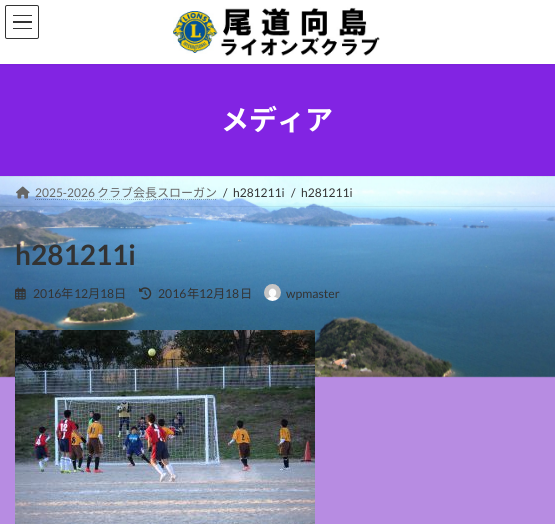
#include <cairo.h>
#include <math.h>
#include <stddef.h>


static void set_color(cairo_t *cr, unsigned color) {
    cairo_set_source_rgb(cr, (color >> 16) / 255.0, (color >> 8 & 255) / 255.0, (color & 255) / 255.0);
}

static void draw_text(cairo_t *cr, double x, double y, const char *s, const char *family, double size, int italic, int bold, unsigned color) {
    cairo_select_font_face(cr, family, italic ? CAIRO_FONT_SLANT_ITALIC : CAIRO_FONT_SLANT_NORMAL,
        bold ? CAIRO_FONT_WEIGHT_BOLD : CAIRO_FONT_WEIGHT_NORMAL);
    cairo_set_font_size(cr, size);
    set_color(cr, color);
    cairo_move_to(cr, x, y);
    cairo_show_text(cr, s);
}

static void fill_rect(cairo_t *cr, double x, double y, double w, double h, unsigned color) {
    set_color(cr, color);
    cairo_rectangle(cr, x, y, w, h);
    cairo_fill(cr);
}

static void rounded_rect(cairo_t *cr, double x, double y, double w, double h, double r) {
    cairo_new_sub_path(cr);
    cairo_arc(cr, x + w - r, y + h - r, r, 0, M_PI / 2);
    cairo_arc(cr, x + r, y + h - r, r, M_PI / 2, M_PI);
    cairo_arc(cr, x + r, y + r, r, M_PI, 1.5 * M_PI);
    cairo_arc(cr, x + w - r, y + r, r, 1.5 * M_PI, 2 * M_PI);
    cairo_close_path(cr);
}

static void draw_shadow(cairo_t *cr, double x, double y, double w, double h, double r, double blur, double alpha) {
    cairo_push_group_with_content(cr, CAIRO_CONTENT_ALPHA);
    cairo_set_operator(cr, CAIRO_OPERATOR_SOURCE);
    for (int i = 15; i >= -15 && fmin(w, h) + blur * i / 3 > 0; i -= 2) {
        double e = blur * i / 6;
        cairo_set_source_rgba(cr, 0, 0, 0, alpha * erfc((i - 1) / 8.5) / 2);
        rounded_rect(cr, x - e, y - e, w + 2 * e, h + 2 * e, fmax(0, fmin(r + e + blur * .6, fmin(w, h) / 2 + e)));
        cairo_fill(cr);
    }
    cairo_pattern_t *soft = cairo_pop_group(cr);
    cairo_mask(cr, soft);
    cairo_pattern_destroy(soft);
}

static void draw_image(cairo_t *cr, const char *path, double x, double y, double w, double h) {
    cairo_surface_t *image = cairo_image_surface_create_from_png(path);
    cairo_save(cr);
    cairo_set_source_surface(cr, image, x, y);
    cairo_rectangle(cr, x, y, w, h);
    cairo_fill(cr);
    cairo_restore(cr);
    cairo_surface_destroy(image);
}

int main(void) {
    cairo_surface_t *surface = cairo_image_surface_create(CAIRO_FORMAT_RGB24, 555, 524);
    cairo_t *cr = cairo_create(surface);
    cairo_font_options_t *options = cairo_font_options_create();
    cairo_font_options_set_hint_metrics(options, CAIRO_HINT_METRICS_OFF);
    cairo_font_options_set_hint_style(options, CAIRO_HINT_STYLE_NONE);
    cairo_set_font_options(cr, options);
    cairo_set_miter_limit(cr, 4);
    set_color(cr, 0xB78CE2);
    cairo_paint(cr);
    draw_image(cr, "assets/img1.png", 0, 176, 555, 202);
    fill_rect(cr, 0, 64, 555, 112, 0x8224E3);
    set_color(cr, 0x000000);
    draw_shadow(cr, 0, 1, 555, 64, 0, 1.5, 0.05);
    fill_rect(cr, 0, 0, 555, 64, 0xFFFFFF);
    draw_image(cr, "assets/img2.png", 173, 7, 207, 50);
    fill_rect(cr, 13, 15, 19, 1, 0x333333);
    fill_rect(cr, 13, 21, 19, 2, 0x333333);
    fill_rect(cr, 13, 28, 19, 1, 0x333333);
    rounded_rect(cr, 5.5, 5.5, 33, 33, 1.5);
    cairo_set_line_width(cr, 1);
    cairo_stroke(cr);
    draw_text(cr, 221, 130, "メディア", "Noto Sans JP", 28, 0, 1, 0xFFFFFF);
    cairo_set_source_rgba(cr, 0, 0, 0, 0.06);
    cairo_rectangle(cr, 0, 176, 555, 1);
    cairo_fill(cr);
    cairo_rectangle(cr, 0, 206, 555, 1);
    cairo_fill(cr);
    draw_image(cr, "assets/img3.png", 16, 186, 14, 13);
    draw_text(cr, 35, 197, "2025-2026", "Lato", 12, 0, 0, 0x666666);
    cairo_new_path(cr);
    cairo_move_to(cr, 35, 199.5);
    cairo_line_to(cr, 217, 199.5);
    cairo_set_source_rgba(cr, 0, 0, 0, 0.3);
    cairo_set_dash(cr, (double[]){1, 1}, 2, 0);
    cairo_stroke(cr);
    draw_text(cr, 97, 197, "クラブ会長スローガン", "Noto Sans JP", 12, 0, 0, 0x666666);
    draw_text(cr, 223, 197, "/", "Lato", 12, 0, 0, 0x333333);
    draw_text(cr, 233, 197, "h281211i", "Lato", 12, 0, 0, 0x333333);
    draw_text(cr, 291, 197, "/", "Lato", 12, 0, 0, 0x333333);
    draw_text(cr, 301, 197, "h281211i", "Lato", 12, 0, 0, 0x333333);
    draw_text(cr, 15, 265, "h281211i", "Lato", 28, 0, 1, 0x333333);
    draw_image(cr, "assets/img4.png", 15, 287, 11, 13);
    draw_text(cr, 33, 298, "2016", "Lato", 12.25, 0, 0, 0x333333);
    draw_text(cr, 61, 298, "年", "Noto Sans JP", 12.25, 0, 0, 0x333333);
    draw_text(cr, 74, 298, "12", "Lato", 12.25, 0, 0, 0x333333);
    draw_text(cr, 88, 298, "月", "Noto Sans JP", 12.25, 0, 0, 0x333333);
    draw_text(cr, 100, 298, "18", "Lato", 12.25, 0, 0, 0x333333);
    draw_text(cr, 114, 298, "日", "Noto Sans JP", 12.25, 0, 0, 0x333333);
    draw_image(cr, "assets/img5.png", 139, 287, 13, 13);
    draw_text(cr, 158, 298, "2016", "Lato", 12.25, 0, 0, 0x333333);
    draw_text(cr, 187, 298, "年", "Noto Sans JP", 12.25, 0, 0, 0x333333);
    draw_text(cr, 199, 298, "12", "Lato", 12.25, 0, 0, 0x333333);
    draw_text(cr, 213, 298, "月", "Noto Sans JP", 12.25, 0, 0, 0x333333);
    draw_text(cr, 225, 298, "18", "Lato", 12.25, 0, 0, 0x333333);
    draw_text(cr, 240, 298, "日", "Noto Sans JP", 12.25, 0, 0, 0x333333);
    draw_image(cr, "assets/img6.png", 264, 284, 17, 17);
    draw_text(cr, 286, 298, "wpmaster", "Lato", 12.25, 0, 0, 0x333333);
    draw_image(cr, "assets/img7.png", 15, 330, 300, 194);
    cairo_surface_write_to_png(surface, "output.png");
    cairo_font_options_destroy(options);
    cairo_destroy(cr);
    cairo_surface_destroy(surface);
    return 0;
}
